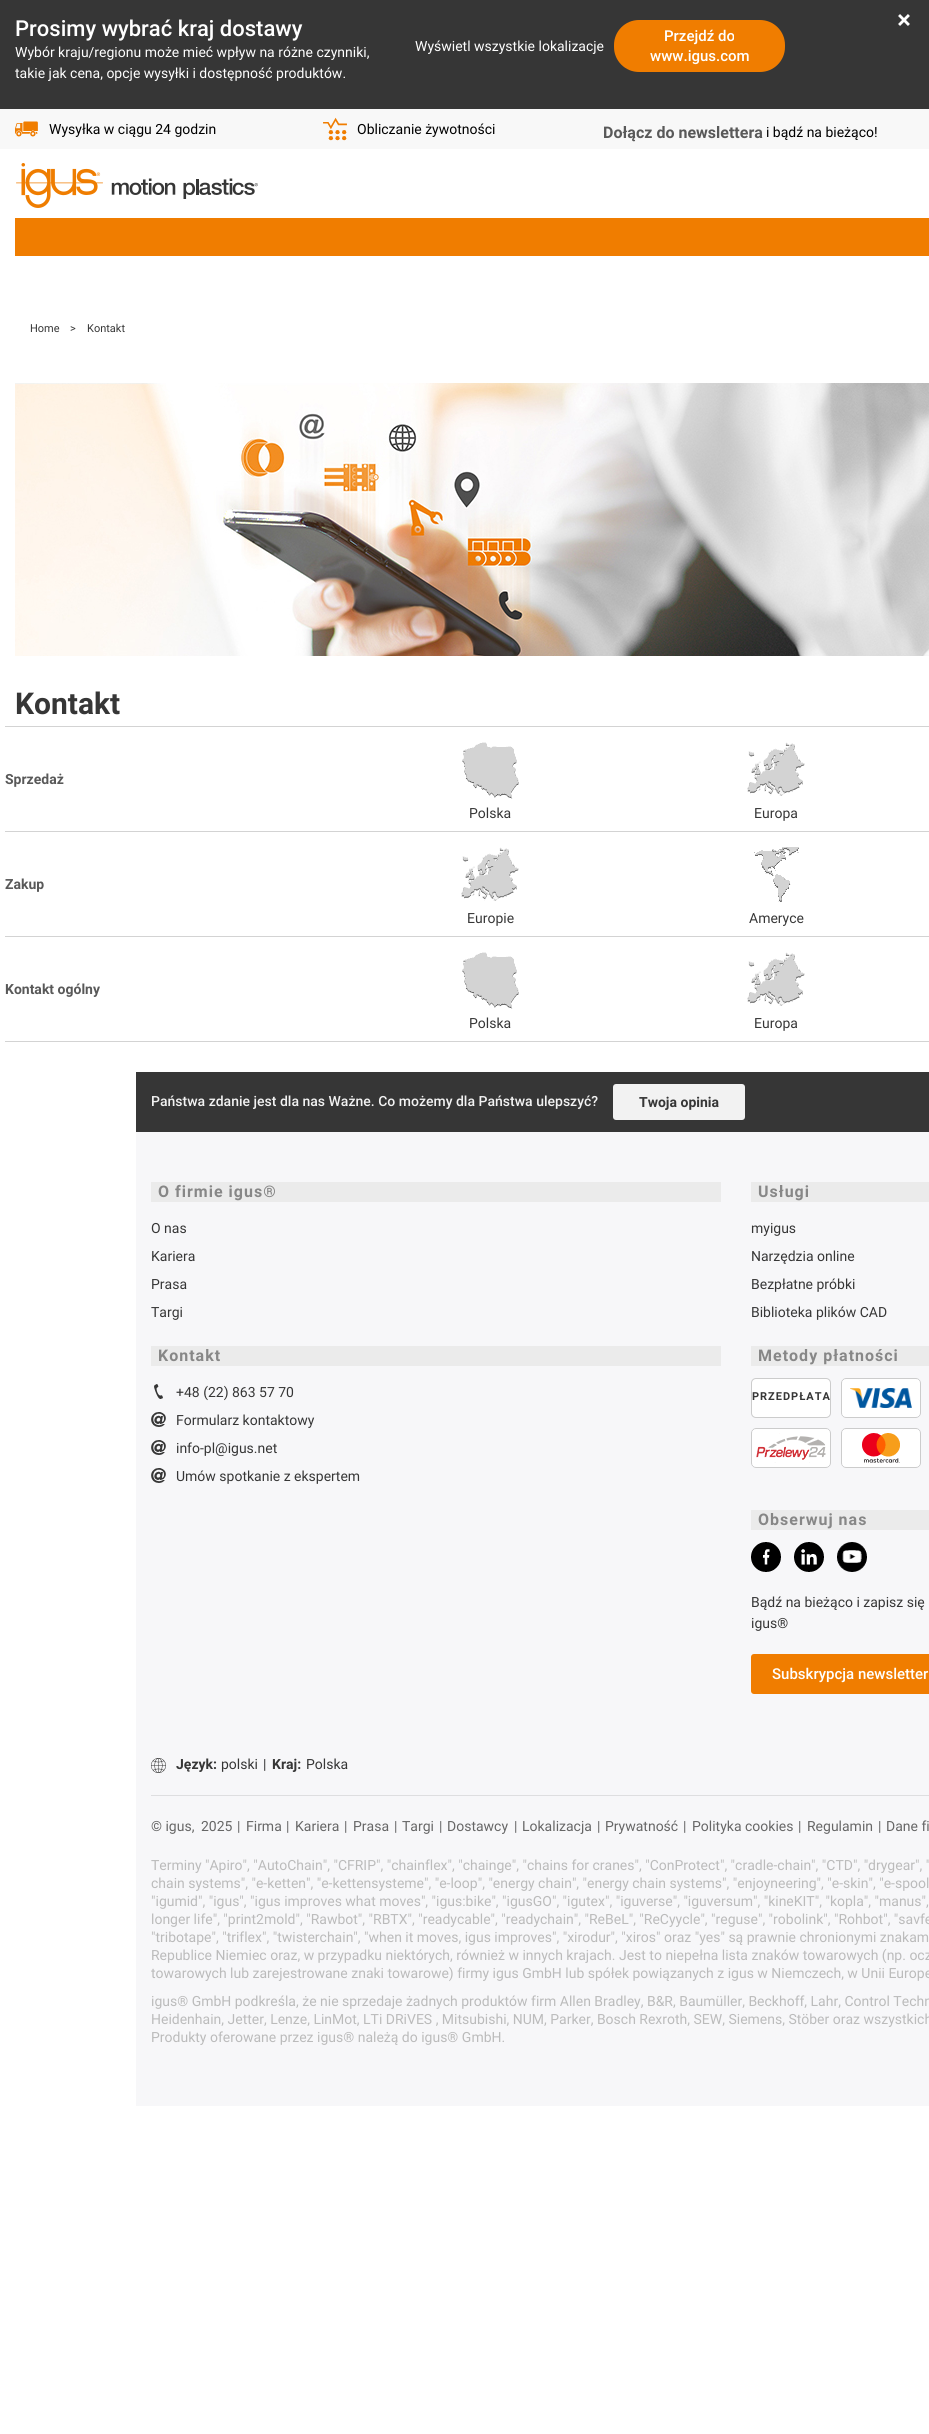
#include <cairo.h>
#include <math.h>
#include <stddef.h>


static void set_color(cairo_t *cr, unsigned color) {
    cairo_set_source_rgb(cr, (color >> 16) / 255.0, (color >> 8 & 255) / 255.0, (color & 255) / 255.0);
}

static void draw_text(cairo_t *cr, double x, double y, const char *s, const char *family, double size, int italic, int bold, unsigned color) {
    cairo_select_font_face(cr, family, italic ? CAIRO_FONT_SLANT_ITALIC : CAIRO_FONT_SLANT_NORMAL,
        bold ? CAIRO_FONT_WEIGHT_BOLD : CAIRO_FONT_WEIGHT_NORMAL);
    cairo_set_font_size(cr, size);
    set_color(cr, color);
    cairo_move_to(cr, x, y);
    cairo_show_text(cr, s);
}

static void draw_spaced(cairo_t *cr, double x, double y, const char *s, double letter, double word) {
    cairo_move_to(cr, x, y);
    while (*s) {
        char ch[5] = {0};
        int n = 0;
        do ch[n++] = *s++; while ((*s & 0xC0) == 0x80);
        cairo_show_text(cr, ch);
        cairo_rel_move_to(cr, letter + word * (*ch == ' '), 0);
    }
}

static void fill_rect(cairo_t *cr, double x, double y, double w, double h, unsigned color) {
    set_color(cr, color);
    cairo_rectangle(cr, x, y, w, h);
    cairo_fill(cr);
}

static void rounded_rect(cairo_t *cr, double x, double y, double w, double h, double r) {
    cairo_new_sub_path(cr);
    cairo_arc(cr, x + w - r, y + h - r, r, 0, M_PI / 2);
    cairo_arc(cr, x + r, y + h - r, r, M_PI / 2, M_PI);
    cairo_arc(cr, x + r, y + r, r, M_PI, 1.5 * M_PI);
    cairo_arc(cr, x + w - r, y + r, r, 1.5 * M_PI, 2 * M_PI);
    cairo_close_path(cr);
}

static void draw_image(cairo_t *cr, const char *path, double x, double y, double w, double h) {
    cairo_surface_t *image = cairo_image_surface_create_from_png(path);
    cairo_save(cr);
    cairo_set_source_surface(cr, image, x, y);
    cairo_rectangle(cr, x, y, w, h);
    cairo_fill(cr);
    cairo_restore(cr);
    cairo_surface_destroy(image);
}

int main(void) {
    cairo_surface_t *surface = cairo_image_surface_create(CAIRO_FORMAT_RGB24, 929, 2434);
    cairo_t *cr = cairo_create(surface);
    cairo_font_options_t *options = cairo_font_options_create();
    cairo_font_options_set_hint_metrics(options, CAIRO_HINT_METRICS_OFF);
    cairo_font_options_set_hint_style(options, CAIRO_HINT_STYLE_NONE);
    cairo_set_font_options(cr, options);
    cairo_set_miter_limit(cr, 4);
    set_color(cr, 0xFFFFFF);
    cairo_paint(cr);
    fill_rect(cr, 0, 0, 929, 109, 0x363636);
    draw_text(cr, 15, 36, "Prosimy wybrać kraj dostawy", "Roboto Medium", 22, 0, 0, 0xFFFFFF);
    draw_text(cr, 15, 57, "Wybór kraju/regionu może mieć wpływ na różne czynniki,", "Roboto", 14, 0, 0, 0xFFFFFF);
    draw_text(cr, 15, 78, "takie jak cena, opcje wysyłki i dostępność produktów.", "Roboto", 14, 0, 0, 0xFFFFFF);
    draw_text(cr, 415, 51, "Wyświetl wszystkie lokalizacje", "Roboto", 14, 0, 0, 0xFFFFFF);
    set_color(cr, 0xF07D00);
    rounded_rect(cr, 614, 20, 171, 52, 25);
    cairo_fill(cr);
    draw_text(cr, 664, 41, "Przejdź do", "Roboto Medium", 15, 0, 0, 0xFFFFFF);
    draw_text(cr, 650, 61, "www.igus.com", "Roboto Medium", 15, 0, 0, 0xFFFFFF);
    draw_image(cr, "assets/img1.png", 898, 14, 12, 12);
    fill_rect(cr, 0, 109, 929, 40, 0xF8F8F8);
    draw_image(cr, "assets/img2.png", 15, 121, 23, 16);
    draw_text(cr, 49, 134, "Wysyłka w ciągu 24 godzin", "Roboto", 14, 0, 0, 0x000000);
    draw_image(cr, "assets/img3.png", 323, 117, 24, 24);
    draw_text(cr, 357, 134, "Obliczanie żywotności", "Roboto", 14, 0, 0, 0x000000);
    draw_text(cr, 603, 138, "Dołącz do newslettera", "Roboto", 16, 0, 1, 0x595959);
    draw_text(cr, 766, 137, "i bądź na bieżąco!", "Roboto", 14, 0, 0, 0x000000);
    draw_image(cr, "assets/img4.png", 16, 163, 242, 45);
    fill_rect(cr, 15, 218, 914, 38, 0xF07D00);
    draw_text(cr, 30, 332, "Home", "Roboto", 11, 0, 0, 0x363636);
    draw_text(cr, 70, 332, ">", "Roboto", 11, 0, 0, 0x363636);
    draw_text(cr, 87, 332, "Kontakt", "Roboto", 11, 0, 0, 0x363636);
    draw_image(cr, "assets/img5.png", 15, 383, 914, 273);
    draw_text(cr, 15, 714, "Kontakt", "Roboto", 30, 0, 1, 0x363636);
    fill_rect(cr, 5, 726, 924, 1, 0xD3D3D3);
    draw_text(cr, 5, 784, "Sprzedaż", "Roboto", 14, 0, 1, 0x595959);
    draw_image(cr, "assets/img6.png", 462, 742, 57, 57);
    draw_text(cr, 469, 818, "Polska", "Roboto", 14, 0, 0, 0x363636);
    draw_image(cr, "assets/img7.png", 747, 742, 58, 54);
    draw_text(cr, 754, 818, "Europa", "Roboto", 14, 0, 0, 0x363636);
    fill_rect(cr, 5, 831, 924, 1, 0xD3D3D3);
    draw_text(cr, 5, 889, "Zakup", "Roboto", 14, 0, 1, 0x595959);
    draw_image(cr, "assets/img7.png", 461, 847, 58, 54);
    draw_text(cr, 467, 923, "Europie", "Roboto", 14, 0, 0, 0x363636);
    draw_image(cr, "assets/img8.png", 754, 847, 45, 55);
    draw_text(cr, 749, 923, "Ameryce", "Roboto", 14, 0, 0, 0x363636);
    fill_rect(cr, 5, 936, 924, 1, 0xD3D3D3);
    draw_text(cr, 5, 994, "Kontakt ogólny", "Roboto", 14, 0, 1, 0x595959);
    draw_image(cr, "assets/img6.png", 462, 952, 57, 57);
    draw_text(cr, 469, 1028, "Polska", "Roboto", 14, 0, 0, 0x363636);
    draw_image(cr, "assets/img7.png", 747, 952, 58, 54);
    draw_text(cr, 754, 1028, "Europa", "Roboto", 14, 0, 0, 0x363636);
    fill_rect(cr, 5, 1041, 924, 1, 0xD3D3D3);
    fill_rect(cr, 136, 1132, 793, 974, 0xF7F7F9);
    fill_rect(cr, 136, 1072, 793, 60, 0x363636);
    draw_text(cr, 151, 1106, "Państwa zdanie jest dla nas Ważne. Co możemy dla Państwa ulepszyć?", "Roboto Medium", 14, 0, 0, 0xF2F2F2);
    rounded_rect(cr, 613, 1084, 132, 36, 3);
    cairo_fill(cr);
    draw_text(cr, 639, 1107, "Twoja opinia", "Roboto", 14, 0, 1, 0x363636);
    fill_rect(cr, 151, 1182, 570, 20, 0xEBEBEB);
    cairo_set_font_size(cr, 16);
    set_color(cr, 0x878787);
    draw_spaced(cr, 158, 1197, "O firmie igus®", 1, 0);
    draw_text(cr, 151, 1233, "O nas", "Roboto", 14, 0, 0, 0x363636);
    draw_text(cr, 151, 1261, "Kariera", "Roboto", 14, 0, 0, 0x363636);
    draw_text(cr, 151, 1289, "Prasa", "Roboto", 14, 0, 0, 0x363636);
    draw_text(cr, 151, 1317, "Targi", "Roboto", 14, 0, 0, 0x363636);
    fill_rect(cr, 751, 1182, 178, 20, 0xEBEBEB);
    cairo_select_font_face(cr, "Roboto", CAIRO_FONT_SLANT_NORMAL, CAIRO_FONT_WEIGHT_BOLD);
    cairo_set_font_size(cr, 16);
    set_color(cr, 0x878787);
    draw_spaced(cr, 758, 1197, "Usługi", 1, 0);
    draw_text(cr, 751, 1233, "myigus", "Roboto", 14, 0, 0, 0x363636);
    draw_text(cr, 751, 1261, "Narzędzia online", "Roboto", 14, 0, 0, 0x363636);
    draw_text(cr, 751, 1289, "Bezpłatne próbki", "Roboto", 14, 0, 0, 0x363636);
    draw_text(cr, 751, 1317, "Biblioteka plików CAD", "Roboto", 14, 0, 0, 0x363636);
    fill_rect(cr, 151, 1346, 570, 20, 0xEBEBEB);
    cairo_select_font_face(cr, "Roboto", CAIRO_FONT_SLANT_NORMAL, CAIRO_FONT_WEIGHT_BOLD);
    cairo_set_font_size(cr, 16);
    set_color(cr, 0x878787);
    draw_spaced(cr, 158, 1361, "Kontakt", 1, 0);
    draw_image(cr, "assets/img9.png", 154, 1384, 9, 15);
    draw_text(cr, 176, 1397, "+48 (22) 863 57 70", "Roboto", 14, 0, 0, 0x363636);
    draw_image(cr, "assets/img10.png", 151, 1412, 15, 15);
    draw_text(cr, 176, 1425, "Formularz kontaktowy", "Roboto", 14, 0, 0, 0x363636);
    draw_image(cr, "assets/img10.png", 151, 1440, 15, 15);
    draw_text(cr, 176, 1453, "info-pl@igus.net", "Roboto", 14, 0, 0, 0x363636);
    draw_image(cr, "assets/img10.png", 151, 1468, 15, 15);
    draw_text(cr, 176, 1481, "Umów spotkanie z ekspertem", "Roboto", 14, 0, 0, 0x363636);
    fill_rect(cr, 751, 1346, 178, 20, 0xEBEBEB);
    cairo_select_font_face(cr, "Roboto", CAIRO_FONT_SLANT_NORMAL, CAIRO_FONT_WEIGHT_BOLD);
    cairo_set_font_size(cr, 16);
    set_color(cr, 0x878787);
    draw_spaced(cr, 758, 1361, "Metody płatności", 1, 0);
    set_color(cr, 0xFFFFFF);
    rounded_rect(cr, 751.5, 1378.5, 79, 39, 4.5);
    cairo_fill_preserve(cr);
    set_color(cr, 0xCCCCCC);
    cairo_set_line_width(cr, 1);
    cairo_stroke(cr);
    cairo_set_font_size(cr, 11);
    set_color(cr, 0x363636);
    draw_spaced(cr, 752, 1400, "PRZEDPŁATA", 1, 0);
    draw_image(cr, "assets/img11.png", 841, 1378, 80, 40);
    draw_image(cr, "assets/img12.png", 751, 1428, 80, 40);
    draw_image(cr, "assets/img13.png", 841, 1428, 80, 40);
    fill_rect(cr, 751, 1510, 178, 20, 0xEBEBEB);
    cairo_set_font_size(cr, 16);
    set_color(cr, 0x878787);
    draw_spaced(cr, 758, 1525, "Obserwuj nas", 1, 0);
    draw_image(cr, "assets/img14.png", 751, 1542, 30, 30);
    draw_image(cr, "assets/img15.png", 794, 1542, 30, 30);
    draw_image(cr, "assets/img16.png", 837, 1542, 30, 30);
    draw_text(cr, 751, 1607, "Bądź na bieżąco i zapisz się", "Roboto", 14, 0, 0, 0x363636);
    draw_text(cr, 751, 1628, "igus®", "Roboto", 14, 0, 0, 0x363636);
    set_color(cr, 0xF07D00);
    rounded_rect(cr, 751, 1654, 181, 40, 3);
    cairo_fill(cr);
    draw_text(cr, 772, 1679, "Subskrypcja newsletter", "Roboto Medium", 15, 0, 0, 0xFFFFFF);
    draw_image(cr, "assets/img17.png", 151, 1758, 15, 15);
    draw_text(cr, 176, 1769, "Język:", "Roboto", 14, 0, 1, 0x363636);
    draw_text(cr, 221, 1769, "polski", "Roboto", 14, 0, 0, 0x363636);
    draw_text(cr, 263, 1769, "|", "Roboto", 14, 0, 0, 0x363636);
    draw_text(cr, 272, 1769, "Kraj:", "Roboto", 14, 0, 1, 0x363636);
    draw_text(cr, 306, 1769, "Polska", "Roboto", 14, 0, 0, 0x363636);
    fill_rect(cr, 151, 1795, 778, 1, 0xDEDEE0);
    draw_text(cr, 151, 1831, "© igus,", "Roboto", 14, 0, 0, 0x666666);
    draw_text(cr, 201, 1831, "2025", "Roboto", 14, 0, 0, 0x666666);
    draw_text(cr, 237, 1831, "|", "Roboto", 14, 0, 0, 0x666666);
    draw_text(cr, 246, 1831, "Firma", "Roboto", 14, 0, 0, 0x666666);
    draw_text(cr, 286, 1831, "|", "Roboto", 14, 0, 0, 0x666666);
    draw_text(cr, 295, 1831, "Kariera", "Roboto", 14, 0, 0, 0x666666);
    draw_text(cr, 344, 1831, "|", "Roboto", 14, 0, 0, 0x666666);
    draw_text(cr, 353, 1831, "Prasa", "Roboto", 14, 0, 0, 0x666666);
    draw_text(cr, 394, 1831, "|", "Roboto", 14, 0, 0, 0x666666);
    draw_text(cr, 402, 1831, "Targi", "Roboto", 14, 0, 0, 0x666666);
    draw_text(cr, 439, 1831, "|", "Roboto", 14, 0, 0, 0x666666);
    draw_text(cr, 447, 1831, "Dostawcy", "Roboto", 14, 0, 0, 0x666666);
    draw_text(cr, 514, 1831, "|", "Roboto", 14, 0, 0, 0x666666);
    draw_text(cr, 522, 1831, "Lokalizacja", "Roboto", 14, 0, 0, 0x666666);
    draw_text(cr, 597, 1831, "|", "Roboto", 14, 0, 0, 0x666666);
    draw_text(cr, 605, 1831, "Prywatność", "Roboto", 14, 0, 0, 0x666666);
    draw_text(cr, 683, 1831, "|", "Roboto", 14, 0, 0, 0x666666);
    draw_text(cr, 692, 1831, "Polityka cookies", "Roboto", 14, 0, 0, 0x666666);
    draw_text(cr, 798, 1831, "|", "Roboto", 14, 0, 0, 0x666666);
    draw_text(cr, 807, 1831, "Regulamin", "Roboto", 14, 0, 0, 0x666666);
    draw_text(cr, 878, 1831, "|", "Roboto", 14, 0, 0, 0x666666);
    draw_text(cr, 886, 1831, "Dane fi", "Roboto", 14, 0, 0, 0x666666);
    draw_text(cr, 151, 1870, "Terminy \"Apiro\", \"AutoChain\", \"CFRIP\", \"chainflex\", \"chainge\", \"chains for cranes\", \"ConProtect\", \"cradle-chain\", \"CTD\", \"drygear\", \"", "Roboto", 14, 0, 0, 0xBBBBBB);
    draw_text(cr, 151, 1888, "chain systems\", \"e-ketten\", \"e-kettensysteme\", \"e-loop\", \"energy chain\", \"energy chain systems\", \"enjoyneering\", \"e-skin\", \"e-spool", "Roboto", 14, 0, 0, 0xBBBBBB);
    draw_text(cr, 151, 1906, "\"igumid\", \"igus\", \"igus improves what moves\", \"igus:bike\", \"igusGO\", \"igutex\", \"iguverse\", \"iguversum\", \"kineKIT\", \"kopla\", \"manus\",", "Roboto", 14, 0, 0, 0xBBBBBB);
    draw_text(cr, 151, 1924, "longer life\", \"print2mold\", \"Rawbot\", \"RBTX\", \"readycable\", \"readychain\", \"ReBeL\", \"ReCyycle\", \"reguse\", \"robolink\", \"Rohbot\", \"savfe", "Roboto", 14, 0, 0, 0xBBBBBB);
    draw_text(cr, 151, 1942, "\"tribotape\", \"triflex\", \"twisterchain\", \"when it moves, igus improves\", \"xirodur\", \"xiros\" oraz \"yes\" są prawnie chronionymi znakam", "Roboto", 14, 0, 0, 0xBBBBBB);
    draw_text(cr, 151, 1960, "Republice Niemiec oraz, w przypadku niektórych, również w innych krajach. Jest to niepełna lista znaków towarowych (np. ocz", "Roboto", 14, 0, 0, 0xBBBBBB);
    draw_text(cr, 151, 1978, "towarowych lub zarejestrowane znaki towarowe) firmy igus GmbH lub spółek powiązanych z igus w Niemczech, w Unii Europe", "Roboto", 14, 0, 0, 0xBBBBBB);
    draw_text(cr, 151, 2006, "igus® GmbH podkreśla, że nie sprzedaje żadnych produktów firm Allen Bradley, B&R, Baumüller, Beckhoff, Lahr, Control Techn", "Roboto", 14, 0, 0, 0xBBBBBB);
    draw_text(cr, 151, 2024, "Heidenhain, Jetter, Lenze, LinMot, LTi DRiVES , Mitsubishi, NUM, Parker, Bosch Rexroth, SEW, Siemens, Stöber oraz wszystkich", "Roboto", 14, 0, 0, 0xBBBBBB);
    draw_text(cr, 151, 2042, "Produkty oferowane przez igus® należą do igus® GmbH.", "Roboto", 14, 0, 0, 0xBBBBBB);
    cairo_surface_write_to_png(surface, "output.png");
    cairo_font_options_destroy(options);
    cairo_destroy(cr);
    cairo_surface_destroy(surface);
    return 0;
}
